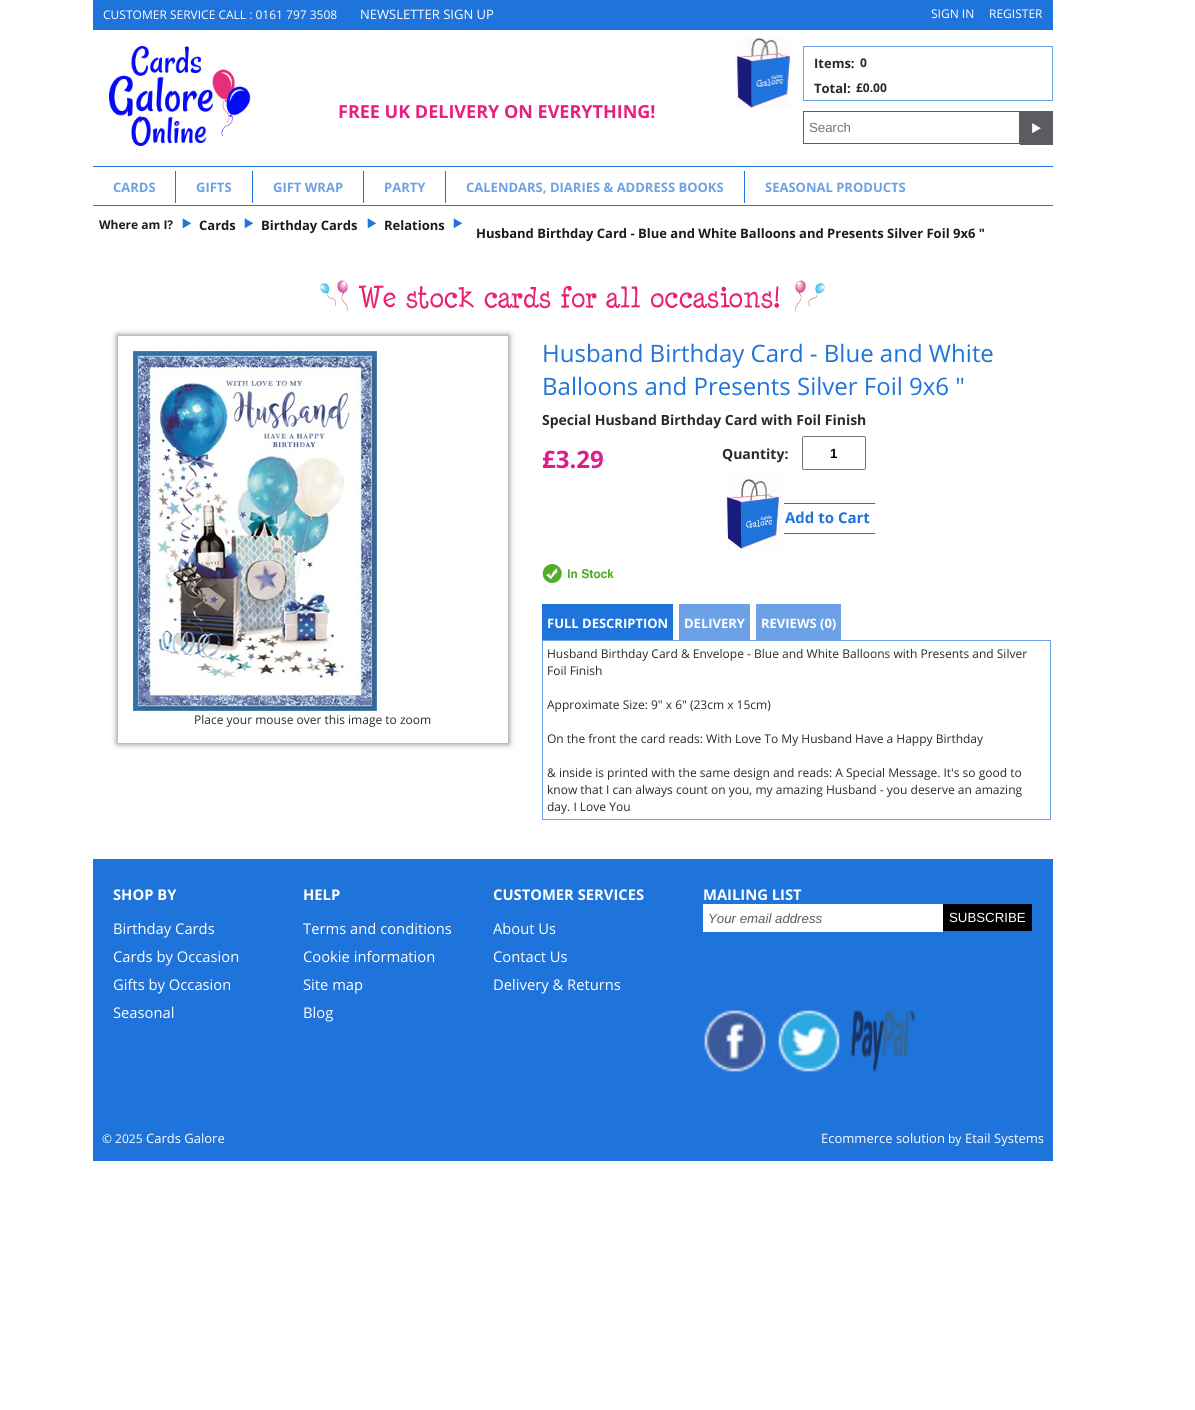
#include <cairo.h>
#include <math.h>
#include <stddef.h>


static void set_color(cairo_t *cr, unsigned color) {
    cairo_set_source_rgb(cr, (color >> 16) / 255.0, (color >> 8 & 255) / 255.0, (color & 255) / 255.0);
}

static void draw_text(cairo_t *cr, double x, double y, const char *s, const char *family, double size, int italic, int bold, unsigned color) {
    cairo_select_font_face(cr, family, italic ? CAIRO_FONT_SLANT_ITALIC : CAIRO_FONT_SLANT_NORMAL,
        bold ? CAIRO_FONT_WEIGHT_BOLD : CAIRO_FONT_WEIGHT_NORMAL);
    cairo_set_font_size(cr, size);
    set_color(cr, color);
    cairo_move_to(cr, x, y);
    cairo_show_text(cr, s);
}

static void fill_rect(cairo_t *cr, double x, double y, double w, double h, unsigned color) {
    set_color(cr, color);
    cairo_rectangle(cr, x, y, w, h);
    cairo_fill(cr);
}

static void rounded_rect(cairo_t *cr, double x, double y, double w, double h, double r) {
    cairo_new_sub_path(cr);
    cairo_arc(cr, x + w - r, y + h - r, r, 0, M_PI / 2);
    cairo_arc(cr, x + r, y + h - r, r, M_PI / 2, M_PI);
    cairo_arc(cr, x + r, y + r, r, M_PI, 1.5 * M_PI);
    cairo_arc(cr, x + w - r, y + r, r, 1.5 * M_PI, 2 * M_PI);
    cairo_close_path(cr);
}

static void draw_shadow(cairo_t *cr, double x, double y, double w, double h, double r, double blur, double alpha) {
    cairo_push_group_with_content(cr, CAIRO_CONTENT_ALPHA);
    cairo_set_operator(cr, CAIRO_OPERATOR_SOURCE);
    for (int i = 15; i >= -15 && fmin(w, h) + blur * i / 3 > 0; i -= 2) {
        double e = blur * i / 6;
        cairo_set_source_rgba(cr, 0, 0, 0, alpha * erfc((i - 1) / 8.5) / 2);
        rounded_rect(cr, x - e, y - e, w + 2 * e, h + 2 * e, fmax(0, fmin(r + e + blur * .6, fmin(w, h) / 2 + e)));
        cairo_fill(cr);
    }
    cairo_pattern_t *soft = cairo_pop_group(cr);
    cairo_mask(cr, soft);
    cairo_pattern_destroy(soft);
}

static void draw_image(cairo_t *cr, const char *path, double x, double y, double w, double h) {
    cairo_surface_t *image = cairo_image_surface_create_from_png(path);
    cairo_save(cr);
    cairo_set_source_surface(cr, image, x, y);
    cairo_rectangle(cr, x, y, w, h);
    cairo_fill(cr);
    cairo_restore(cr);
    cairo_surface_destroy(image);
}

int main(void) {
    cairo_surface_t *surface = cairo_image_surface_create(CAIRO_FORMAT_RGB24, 1195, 1410);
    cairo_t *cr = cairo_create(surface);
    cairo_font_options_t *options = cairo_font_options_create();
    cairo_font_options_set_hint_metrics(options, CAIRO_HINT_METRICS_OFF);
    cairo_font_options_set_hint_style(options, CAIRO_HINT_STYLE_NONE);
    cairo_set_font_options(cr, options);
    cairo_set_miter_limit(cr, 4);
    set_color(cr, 0xFFFFFF);
    cairo_paint(cr);
    fill_rect(cr, 93, 0, 960, 30, 0x1F74DC);
    draw_text(cr, 103, 19, "CUSTOMER SERVICE CALL : 0161 797 3508", "Open Sans", 12, 0, 0, 0xFFFFFF);
    draw_text(cr, 360, 19, "NEWSLETTER SIGN UP", "Open Sans", 13, 0, 0, 0xFFFFFF);
    draw_text(cr, 931, 18, "SIGN IN", "Open Sans", 12, 0, 0, 0xFFFFFF);
    draw_text(cr, 989, 18, "REGISTER", "Open Sans", 12, 0, 0, 0xFFFFFF);
    draw_image(cr, "assets/img1.png", 109, 46, 142, 100);
    draw_image(cr, "assets/img2.png", 735, 37, 56, 72);
    cairo_rectangle(cr, 803.5, 46.5, 249, 54);
    set_color(cr, 0x6CA2E5);
    cairo_set_line_width(cr, 1);
    cairo_stroke(cr);
    draw_text(cr, 814, 68, "Items:", "Open Sans", 13, 0, 1, 0x2A2A2A);
    draw_text(cr, 860, 67, "0", "Open Sans", 12, 0, 1, 0x2A2A2A);
    draw_text(cr, 814, 93, "Total:", "Open Sans", 13, 0, 1, 0x2A2A2A);
    draw_text(cr, 856, 92, "£0.00", "Open Sans", 12, 0, 1, 0x2A2A2A);
    draw_text(cr, 338, 118, "FREE UK DELIVERY ON EVERYTHING!", "Open Sans", 18, 0, 1, 0xEA1E7E);
    cairo_rectangle(cr, 803.5, 111.5, 216, 32);
    set_color(cr, 0x5C5B60);
    cairo_stroke(cr);
    draw_text(cr, 809, 132, "Search", "Liberation Sans", 13.25, 0, 0, 0x757575);
    fill_rect(cr, 1020, 111, 33, 34, 0x5C5B60);
    draw_image(cr, "assets/img3.png", 1032, 123, 9, 10);
    fill_rect(cr, 93, 166, 960, 1, 0x1F74DC);
    fill_rect(cr, 93, 205, 960, 1, 0x1F74DC);
    fill_rect(cr, 175, 171, 1, 32, 0x1F74DC);
    draw_text(cr, 113, 192, "CARDS", "Open Sans", 13, 0, 1, 0x6CA2E5);
    fill_rect(cr, 252, 171, 1, 32, 0x1F74DC);
    draw_text(cr, 196, 192, "GIFTS", "Open Sans", 13, 0, 1, 0x6CA2E5);
    fill_rect(cr, 363, 171, 1, 32, 0x1F74DC);
    draw_text(cr, 273, 192, "GIFT WRAP", "Open Sans", 13, 0, 1, 0x6CA2E5);
    fill_rect(cr, 445, 171, 1, 32, 0x1F74DC);
    draw_text(cr, 384, 192, "PARTY", "Open Sans", 13, 0, 1, 0x6CA2E5);
    fill_rect(cr, 744, 171, 1, 32, 0x1F74DC);
    draw_text(cr, 466, 192, "CALENDARS, DIARIES & ADDRESS BOOKS", "Open Sans", 13, 0, 1, 0x6CA2E5);
    draw_text(cr, 765, 192, "SEASONAL PRODUCTS", "Open Sans", 13, 0, 1, 0x6CA2E5);
    draw_text(cr, 99, 229, "Where am I?", "Open Sans", 12, 0, 1, 0x1B1C20);
    draw_image(cr, "assets/img4.png", 182, 218, 9, 10);
    draw_text(cr, 199, 230, "Cards", "Open Sans", 13, 0, 1, 0x1B1C20);
    draw_image(cr, "assets/img4.png", 244, 218, 9, 10);
    draw_text(cr, 261, 230, "Birthday Cards", "Open Sans", 13, 0, 1, 0x1B1C20);
    draw_image(cr, "assets/img4.png", 367, 218, 9, 10);
    draw_text(cr, 384, 230, "Relations", "Open Sans", 13, 0, 1, 0x1B1C20);
    draw_image(cr, "assets/img4.png", 453, 218, 9, 10);
    draw_text(cr, 476, 238, "Husband Birthday Card - Blue and White Balloons and Presents Silver Foil 9x6 \"", "Open Sans", 13, 0, 1, 0x1B1C20);
    draw_image(cr, "assets/img5.png", 320, 280, 505, 32);
    cairo_save(cr);
    cairo_set_fill_rule(cr, CAIRO_FILL_RULE_EVEN_ODD);
    cairo_new_path(cr);
    cairo_move_to(cr, 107, 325);
    cairo_line_to(cr, 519, 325);
    cairo_line_to(cr, 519, 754);
    cairo_line_to(cr, 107, 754);
    cairo_close_path(cr);
    cairo_move_to(cr, 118, 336);
    cairo_line_to(cr, 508, 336);
    cairo_line_to(cr, 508, 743);
    cairo_line_to(cr, 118, 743);
    cairo_close_path(cr);
    cairo_clip(cr);
    set_color(cr, 0x888888);
    draw_shadow(cr, 117, 335, 392, 409, 0, 3, 1);
    cairo_restore(cr);
    draw_image(cr, "assets/img6.png", 133, 351, 244, 360);
    draw_text(cr, 194, 724, "Place your mouse over this image to zoom", "Open Sans", 12, 0, 0, 0x2A2A2A);
    draw_text(cr, 542, 362, "Husband Birthday Card - Blue and White", "Open Sans", 24, 0, 0, 0x1F74DC);
    draw_text(cr, 542, 395, "Balloons and Presents Silver Foil 9x6 \"", "Open Sans", 24, 0, 0, 0x1F74DC);
    draw_text(cr, 542, 425, "Special Husband Birthday Card with Foil Finish", "Open Sans", 14, 0, 1, 0x2A2A2A);
    draw_text(cr, 542, 468, "£3.29", "Open Sans", 24, 0, 1, 0xDC1D8C);
    draw_text(cr, 722, 459, "Quantity:", "Open Sans", 14, 0, 1, 0x2A2A2A);
    rounded_rect(cr, 802.5, 436.5, 63, 33, 1.5);
    set_color(cr, 0x767676);
    cairo_stroke(cr);
    draw_text(cr, 830, 458, "1", "Liberation Sans", 13.25, 0, 1, 0x000000);
    draw_image(cr, "assets/img7.png", 726, 476, 150, 75);
    draw_image(cr, "assets/img8.png", 542, 564, 72, 19);
    fill_rect(cr, 542, 604, 131, 36, 0x1F74DC);
    draw_text(cr, 547, 628, "FULL DESCRIPTION", "Open Sans", 13, 0, 1, 0xFFFFFF);
    fill_rect(cr, 679, 604, 71, 36, 0x6CA2E5);
    draw_text(cr, 684, 628, "DELIVERY", "Open Sans", 13, 0, 1, 0xFFFFFF);
    fill_rect(cr, 756, 604, 85, 36, 0x6CA2E5);
    draw_text(cr, 761, 628, "REVIEWS (0)", "Open Sans", 13, 0, 1, 0xFFFFFF);
    cairo_rectangle(cr, 542.5, 640.5, 508, 179);
    set_color(cr, 0x6CA2E5);
    cairo_stroke(cr);
    draw_text(cr, 547, 658, "Husband Birthday Card & Envelope - Blue and White Balloons with Presents and Silver", "Open Sans", 12, 0, 0, 0x2A2A2A);
    draw_text(cr, 547, 675, "Foil Finish", "Open Sans", 12, 0, 0, 0x2A2A2A);
    draw_text(cr, 547, 709, "Approximate Size: 9\" x 6\" (23cm x 15cm)", "Open Sans", 12, 0, 0, 0x2A2A2A);
    draw_text(cr, 547, 743, "On the front the card reads: With Love To My Husband Have a Happy Birthday", "Open Sans", 12, 0, 0, 0x2A2A2A);
    draw_text(cr, 547, 777, "& inside is printed with the same design and reads: A Special Message. It's so good to", "Open Sans", 12, 0, 0, 0x2A2A2A);
    draw_text(cr, 547, 794, "know that I can always count on you, my amazing Husband - you deserve an amazing", "Open Sans", 12, 0, 0, 0x2A2A2A);
    draw_text(cr, 547, 811, "day. I Love You", "Open Sans", 12, 0, 0, 0x2A2A2A);
    fill_rect(cr, 93, 859, 960, 302, 0x1F74DC);
    draw_text(cr, 113, 900, "SHOP BY", "Open Sans", 14.75, 0, 1, 0xFFFFFF);
    draw_text(cr, 113, 934, "Birthday Cards", "Open Sans", 14.75, 0, 0, 0xFFFFFF);
    draw_text(cr, 113, 962, "Cards by Occasion", "Open Sans", 14.75, 0, 0, 0xFFFFFF);
    draw_text(cr, 113, 990, "Gifts by Occasion", "Open Sans", 14.75, 0, 0, 0xFFFFFF);
    draw_text(cr, 113, 1018, "Seasonal", "Open Sans", 14.75, 0, 0, 0xFFFFFF);
    draw_text(cr, 303, 900, "HELP", "Open Sans", 14.75, 0, 1, 0xFFFFFF);
    draw_text(cr, 303, 934, "Terms and conditions", "Open Sans", 14.75, 0, 0, 0xFFFFFF);
    draw_text(cr, 303, 962, "Cookie information", "Open Sans", 14.75, 0, 0, 0xFFFFFF);
    draw_text(cr, 303, 990, "Site map", "Open Sans", 14.75, 0, 0, 0xFFFFFF);
    draw_text(cr, 303, 1018, "Blog", "Open Sans", 14.75, 0, 0, 0xFFFFFF);
    draw_text(cr, 493, 900, "CUSTOMER SERVICES", "Open Sans", 14.75, 0, 1, 0xFFFFFF);
    draw_text(cr, 493, 934, "About Us", "Open Sans", 14.75, 0, 0, 0xFFFFFF);
    draw_text(cr, 493, 962, "Contact Us", "Open Sans", 14.75, 0, 0, 0xFFFFFF);
    draw_text(cr, 493, 990, "Delivery & Returns", "Open Sans", 14.75, 0, 0, 0xFFFFFF);
    draw_text(cr, 703, 900, "MAILING LIST", "Open Sans", 14.75, 0, 1, 0xFFFFFF);
    fill_rect(cr, 703, 904, 240, 28, 0xFFFFFF);
    draw_text(cr, 708, 923, "Your email address", "Liberation Sans", 13.25, 1, 0, 0x5C5B60);
    fill_rect(cr, 943, 904, 89, 27, 0x000000);
    draw_text(cr, 949, 922, "SUBSCRIBE", "Liberation Sans", 13.25, 0, 0, 0xFFFFFF);
    draw_image(cr, "assets/img9.png", 704, 1010, 62, 62);
    draw_image(cr, "assets/img10.png", 778, 1010, 62, 62);
    draw_image(cr, "assets/img11.png", 851, 1010, 64, 62);
    draw_text(cr, 102, 1143, "© 2025", "Open Sans", 12, 0, 0, 0xFFFFFF);
    draw_text(cr, 146, 1143, "Cards Galore", "Open Sans", 13, 0, 0, 0xFFFFFF);
    draw_text(cr, 821, 1143, "Ecommerce solution", "Open Sans", 13, 0, 0, 0xFFFFFF);
    draw_text(cr, 948, 1143, "by", "Open Sans", 12, 0, 0, 0xFFFFFF);
    draw_text(cr, 965, 1143, "Etail Systems", "Open Sans", 13, 0, 0, 0xFFFFFF);
    cairo_surface_write_to_png(surface, "output.png");
    cairo_font_options_destroy(options);
    cairo_destroy(cr);
    cairo_surface_destroy(surface);
    return 0;
}
